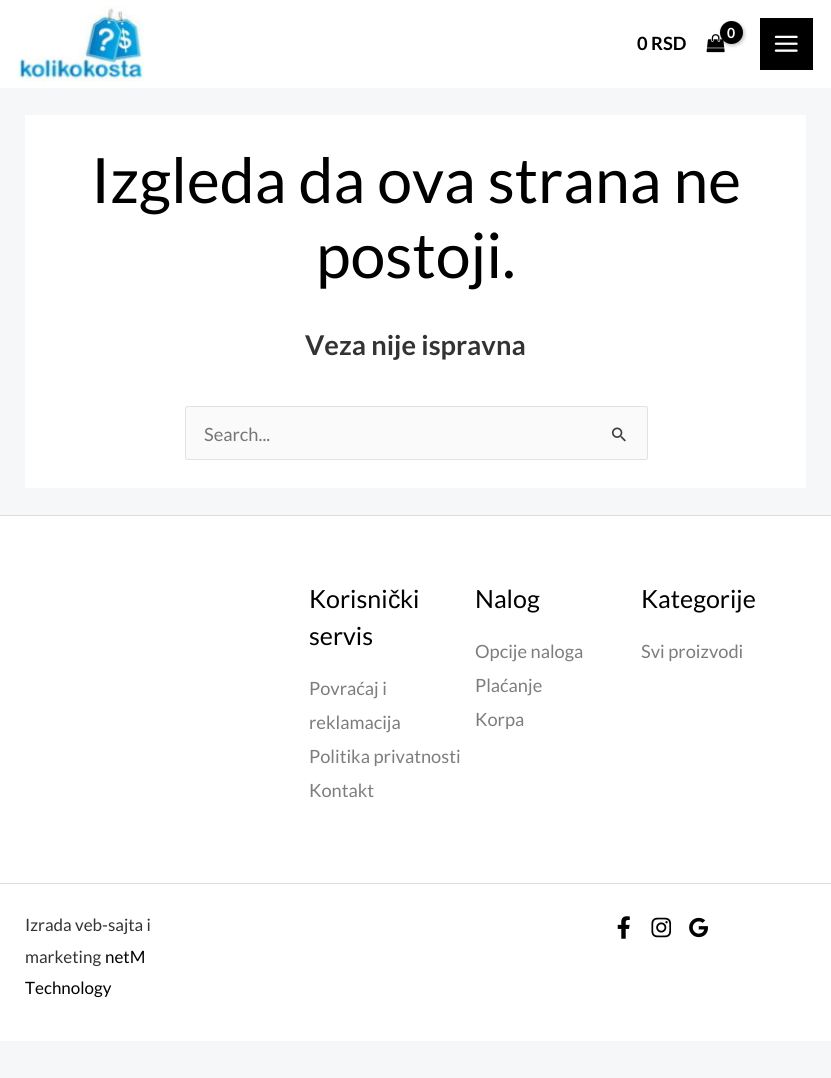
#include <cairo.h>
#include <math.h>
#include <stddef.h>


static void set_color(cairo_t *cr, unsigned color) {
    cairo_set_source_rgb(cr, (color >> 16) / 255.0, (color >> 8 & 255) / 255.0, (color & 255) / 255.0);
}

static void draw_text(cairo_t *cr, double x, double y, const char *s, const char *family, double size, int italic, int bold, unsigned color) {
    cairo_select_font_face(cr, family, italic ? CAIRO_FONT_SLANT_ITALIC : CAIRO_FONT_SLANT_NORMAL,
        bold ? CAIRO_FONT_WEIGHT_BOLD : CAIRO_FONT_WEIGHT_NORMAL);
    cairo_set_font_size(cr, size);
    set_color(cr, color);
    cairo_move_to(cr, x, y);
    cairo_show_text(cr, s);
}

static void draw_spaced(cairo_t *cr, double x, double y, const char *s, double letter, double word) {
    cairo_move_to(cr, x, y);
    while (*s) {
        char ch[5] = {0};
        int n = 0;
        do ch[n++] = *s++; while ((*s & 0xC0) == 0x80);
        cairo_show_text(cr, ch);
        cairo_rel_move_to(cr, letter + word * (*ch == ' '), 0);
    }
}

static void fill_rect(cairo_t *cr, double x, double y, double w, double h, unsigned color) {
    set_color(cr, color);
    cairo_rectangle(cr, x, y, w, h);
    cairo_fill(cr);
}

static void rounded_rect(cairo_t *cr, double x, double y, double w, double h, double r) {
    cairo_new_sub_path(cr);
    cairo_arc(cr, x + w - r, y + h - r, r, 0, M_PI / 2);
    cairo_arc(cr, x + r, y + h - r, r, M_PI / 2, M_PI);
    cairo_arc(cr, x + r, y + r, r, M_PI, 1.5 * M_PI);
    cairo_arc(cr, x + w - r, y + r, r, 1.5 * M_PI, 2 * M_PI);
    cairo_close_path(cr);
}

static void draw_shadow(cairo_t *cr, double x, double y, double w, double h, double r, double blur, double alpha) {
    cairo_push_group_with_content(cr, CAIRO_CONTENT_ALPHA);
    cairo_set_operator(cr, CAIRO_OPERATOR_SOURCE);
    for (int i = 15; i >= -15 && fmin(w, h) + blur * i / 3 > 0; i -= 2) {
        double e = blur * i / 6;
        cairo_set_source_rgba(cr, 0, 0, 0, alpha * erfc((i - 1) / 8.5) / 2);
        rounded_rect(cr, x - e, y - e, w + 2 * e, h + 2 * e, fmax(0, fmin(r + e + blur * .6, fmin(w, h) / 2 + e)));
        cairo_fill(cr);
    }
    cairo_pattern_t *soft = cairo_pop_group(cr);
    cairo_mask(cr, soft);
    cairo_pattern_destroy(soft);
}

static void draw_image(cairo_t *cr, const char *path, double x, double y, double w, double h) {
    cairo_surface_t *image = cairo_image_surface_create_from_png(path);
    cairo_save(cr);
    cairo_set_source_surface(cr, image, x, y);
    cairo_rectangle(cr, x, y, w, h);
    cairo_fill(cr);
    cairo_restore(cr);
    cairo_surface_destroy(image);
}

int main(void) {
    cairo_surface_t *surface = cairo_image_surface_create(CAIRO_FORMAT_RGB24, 831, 1078);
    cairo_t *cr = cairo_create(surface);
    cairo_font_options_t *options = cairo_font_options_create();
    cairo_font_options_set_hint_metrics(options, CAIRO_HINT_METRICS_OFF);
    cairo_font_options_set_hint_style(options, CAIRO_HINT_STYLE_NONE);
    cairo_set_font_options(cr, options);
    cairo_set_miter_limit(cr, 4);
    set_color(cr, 0xF5F7F9);
    cairo_paint(cr);
    fill_rect(cr, 0, 0, 831, 88, 0xFFFFFF);
    draw_image(cr, "assets/img1.png", 18, 6, 126, 76);
    draw_image(cr, "assets/img2.png", 706, 34, 19, 19);
    set_color(cr, 0x000000);
    draw_shadow(cr, 721, 23, 23, 22, 11, 2, 0.3);
    set_color(cr, 0x000000);
    cairo_arc(cr, 731.5, 32.5, 11.5, 0, 2 * M_PI);
    cairo_fill(cr);
    cairo_select_font_face(cr, "Lato", CAIRO_FONT_SLANT_NORMAL, CAIRO_FONT_WEIGHT_BOLD);
    cairo_set_font_size(cr, 14);
    set_color(cr, 0xFFFFFF);
    draw_spaced(cr, 727, 38, "0", -1, 0);
    draw_text(cr, 637, 50, "0 RSD", "Lato", 18.25, 0, 1, 0x000000);
    fill_rect(cr, 760, 18, 53, 52, 0x000000);
    draw_image(cr, "assets/img3.png", 774, 35, 24, 17);
    fill_rect(cr, 25, 115, 781, 373, 0xFFFFFF);
    draw_text(cr, 91, 203, "Izgleda da ova strana ne", "Lato", 62.5, 0, 0, 0x000000);
    draw_text(cr, 316, 278, "postoji.", "Lato", 62.5, 0, 0, 0x000000);
    draw_text(cr, 305, 355, "Veza nije ispravna", "Lato", 27.25, 0, 1, 0x333333);
    set_color(cr, 0xFAFAFA);
    rounded_rect(cr, 185.5, 406.5, 462, 53, 2);
    cairo_fill_preserve(cr);
    set_color(cr, 0xE2E2E2);
    cairo_set_line_width(cr, 1);
    cairo_stroke(cr);
    draw_text(cr, 204, 441, "Search...", "Lato", 18.25, 0, 0, 0x757575);
    draw_image(cr, "assets/img4.png", 611, 427, 15, 15);
    fill_rect(cr, 0, 516, 831, 525, 0xFFFFFF);
    fill_rect(cr, 0, 515, 831, 1, 0xDDDDDD);
    draw_text(cr, 309, 608, "Korisni", "Lato", 25, 0, 0, 0x000000);
    draw_text(cr, 388, 608, "č", "Liberation Sans", 25, 0, 0, 0x000000);
    draw_text(cr, 400, 608, "ki", "Lato", 25, 0, 0, 0x000000);
    draw_text(cr, 309, 645, "servis", "Lato", 25, 0, 0, 0x000000);
    draw_text(cr, 309, 695, "Povraćaj i", "Lato", 18.25, 0, 0, 0x7D7D7D);
    draw_text(cr, 309, 729, "reklamacija", "Lato", 18.25, 0, 0, 0x7D7D7D);
    draw_text(cr, 309, 763, "Politika privatnosti", "Lato", 18.25, 0, 0, 0x7D7D7D);
    draw_text(cr, 309, 797, "Kontakt", "Lato", 18.25, 0, 0, 0x7D7D7D);
    draw_text(cr, 475, 608, "Nalog", "Lato", 25, 0, 0, 0x000000);
    draw_text(cr, 475, 658, "Opcije naloga", "Lato", 18.25, 0, 0, 0x7D7D7D);
    draw_text(cr, 475, 692, "Plaćanje", "Lato", 18.25, 0, 0, 0x7D7D7D);
    draw_text(cr, 475, 726, "Korpa", "Lato", 18.25, 0, 0, 0x7D7D7D);
    draw_text(cr, 641, 608, "Kategorije", "Lato", 25, 0, 0, 0x000000);
    draw_text(cr, 641, 658, "Svi proizvodi", "Lato", 18.25, 0, 0, 0x7D7D7D);
    fill_rect(cr, 0, 883, 831, 1, 0xDDDDDD);
    draw_text(cr, 25, 931, "Izrada veb-sajta i", "Lato", 17, 0, 0, 0x333333);
    draw_text(cr, 25, 963, "marketing", "Lato", 17, 0, 0, 0x333333);
    draw_text(cr, 105, 963, "netM", "Lato", 17, 0, 0, 0x000000);
    draw_text(cr, 25, 994, "Technology", "Lato", 17, 0, 0, 0x000000);
    draw_image(cr, "assets/img5.png", 617, 916, 13, 23);
    draw_image(cr, "assets/img6.png", 651, 917, 21, 21);
    draw_image(cr, "assets/img7.png", 689, 917, 19, 21);
    cairo_surface_write_to_png(surface, "output.png");
    cairo_font_options_destroy(options);
    cairo_destroy(cr);
    cairo_surface_destroy(surface);
    return 0;
}
